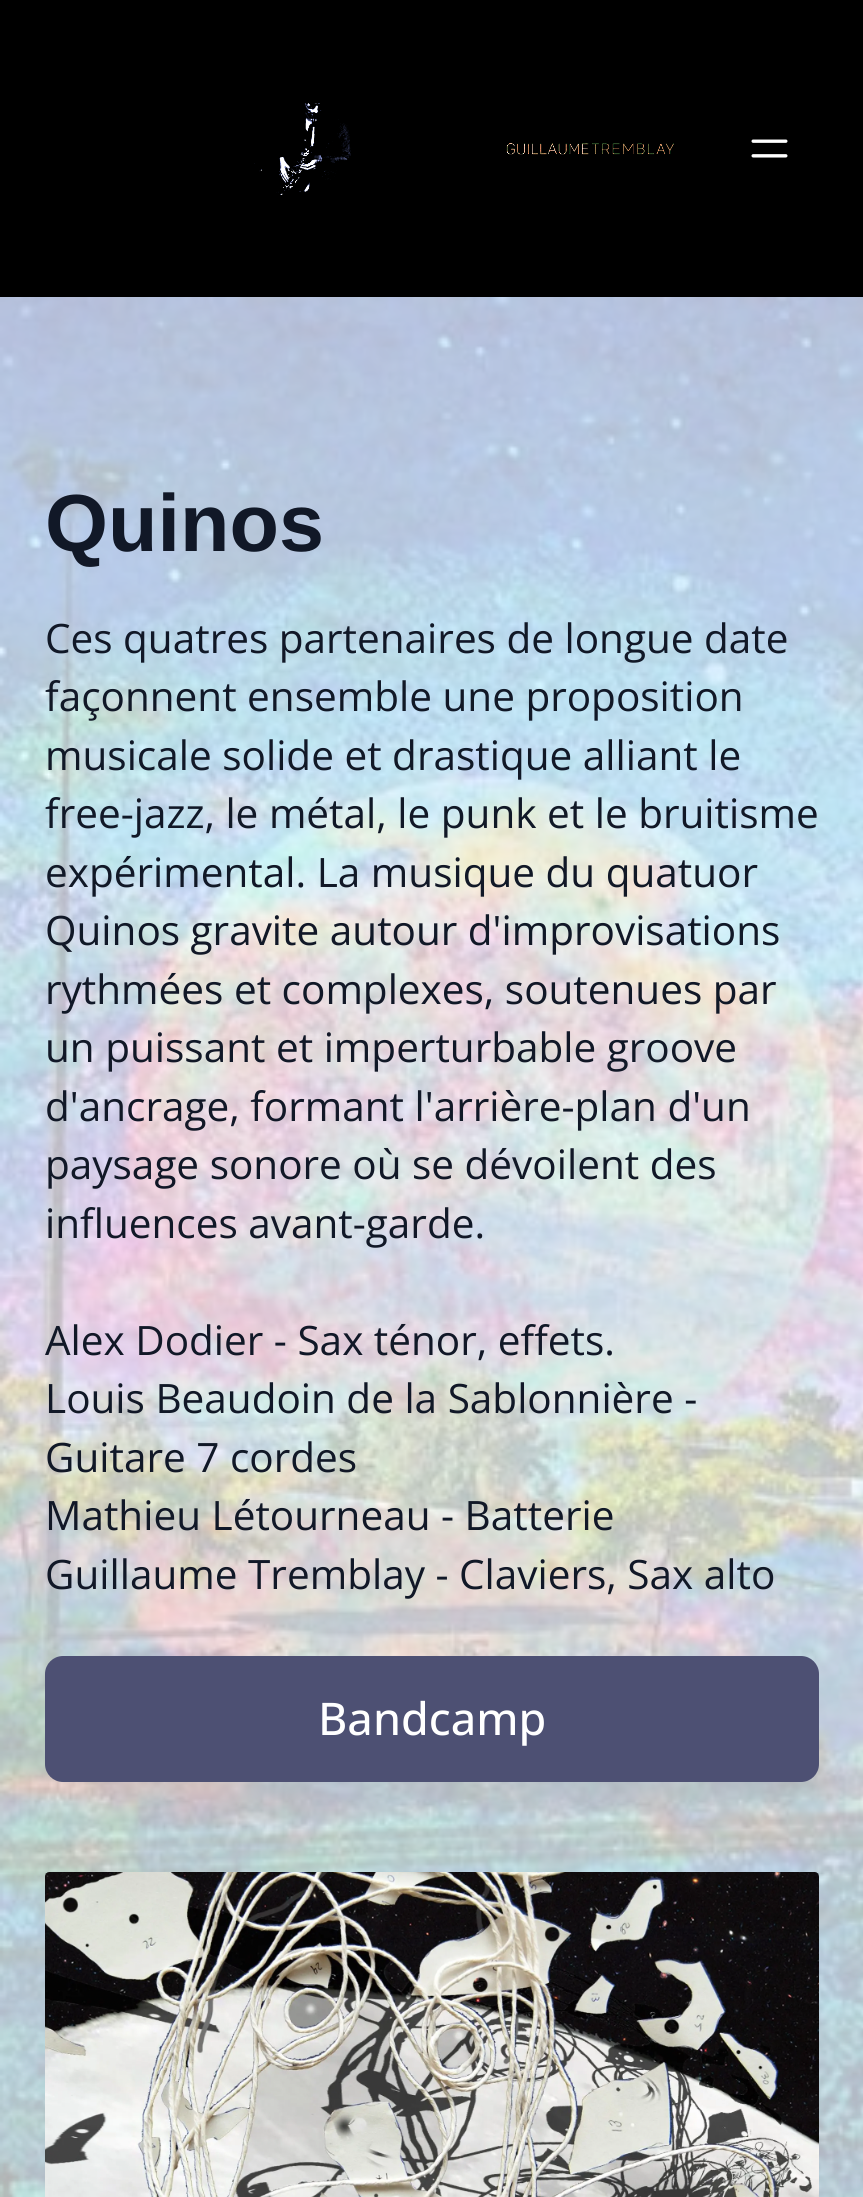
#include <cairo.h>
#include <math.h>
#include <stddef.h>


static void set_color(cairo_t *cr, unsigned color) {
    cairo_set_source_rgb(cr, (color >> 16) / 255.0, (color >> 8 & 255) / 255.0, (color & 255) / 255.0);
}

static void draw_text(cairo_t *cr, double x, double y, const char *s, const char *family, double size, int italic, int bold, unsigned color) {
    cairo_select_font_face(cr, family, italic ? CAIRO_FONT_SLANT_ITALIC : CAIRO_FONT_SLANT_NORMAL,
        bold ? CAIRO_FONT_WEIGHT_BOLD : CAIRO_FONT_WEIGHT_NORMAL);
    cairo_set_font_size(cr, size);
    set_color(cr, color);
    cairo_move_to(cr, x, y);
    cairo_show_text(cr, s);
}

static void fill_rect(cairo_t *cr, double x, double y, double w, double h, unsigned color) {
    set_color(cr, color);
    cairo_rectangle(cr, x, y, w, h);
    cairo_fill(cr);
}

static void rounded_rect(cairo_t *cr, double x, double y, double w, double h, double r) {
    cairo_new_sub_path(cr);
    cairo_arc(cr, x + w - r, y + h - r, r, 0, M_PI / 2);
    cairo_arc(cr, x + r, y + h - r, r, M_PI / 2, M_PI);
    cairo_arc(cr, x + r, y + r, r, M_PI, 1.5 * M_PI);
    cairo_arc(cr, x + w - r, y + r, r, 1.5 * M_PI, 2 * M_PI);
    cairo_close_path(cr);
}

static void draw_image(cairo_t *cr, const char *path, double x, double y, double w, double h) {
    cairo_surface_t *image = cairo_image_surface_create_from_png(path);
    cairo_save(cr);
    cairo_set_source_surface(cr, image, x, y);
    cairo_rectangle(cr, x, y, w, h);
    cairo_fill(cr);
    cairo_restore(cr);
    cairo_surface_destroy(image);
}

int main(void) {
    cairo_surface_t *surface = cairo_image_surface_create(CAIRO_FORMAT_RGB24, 863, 2197);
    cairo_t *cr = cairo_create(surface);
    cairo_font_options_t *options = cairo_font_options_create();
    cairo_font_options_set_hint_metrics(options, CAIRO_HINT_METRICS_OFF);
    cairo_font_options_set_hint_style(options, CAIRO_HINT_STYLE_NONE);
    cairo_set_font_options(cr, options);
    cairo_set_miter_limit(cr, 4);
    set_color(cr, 0xFFFFFF);
    cairo_paint(cr);
    fill_rect(cr, 0, 0, 863, 297, 0x000000);
    draw_image(cr, "assets/img1.png", 254, 103, 420, 92);
    draw_image(cr, "assets/img2.png", 751, 139, 37, 19);
    draw_image(cr, "assets/img3.png", 0, 297, 863, 1900);
    draw_text(cr, 45, 551, "Quinos", "Liberation Sans", 81, 0, 1, 0x111827);
    draw_text(cr, 45, 653, "Ces quatres partenaires de longue date", "Open Sans", 40.5, 0, 0, 0x111827);
    draw_text(cr, 45, 711, "façonnent ensemble une proposition", "Open Sans", 40.5, 0, 0, 0x111827);
    draw_text(cr, 45, 770, "musicale solide et drastique alliant le", "Open Sans", 40.5, 0, 0, 0x111827);
    draw_text(cr, 45, 828, "free-jazz, le métal, le punk et le bruitisme", "Open Sans", 40.5, 0, 0, 0x111827);
    draw_text(cr, 45, 887, "expérimental. La musique du quatuor", "Open Sans", 40.5, 0, 0, 0x111827);
    draw_text(cr, 45, 945, "Quinos gravite autour d'improvisations", "Open Sans", 40.5, 0, 0, 0x111827);
    draw_text(cr, 45, 1004, "rythmées et complexes, soutenues par", "Open Sans", 40.5, 0, 0, 0x111827);
    draw_text(cr, 45, 1062, "un puissant et imperturbable groove", "Open Sans", 40.5, 0, 0, 0x111827);
    draw_text(cr, 45, 1121, "d'ancrage, formant l'arrière-plan d'un", "Open Sans", 40.5, 0, 0, 0x111827);
    draw_text(cr, 45, 1179, "paysage sonore où se dévoilent des", "Open Sans", 40.5, 0, 0, 0x111827);
    draw_text(cr, 45, 1238, "influences avant-garde.", "Open Sans", 40.5, 0, 0, 0x111827);
    draw_text(cr, 45, 1355, "Alex Dodier - Sax ténor, effets.", "Open Sans", 40.5, 0, 0, 0x111827);
    draw_text(cr, 45, 1413, "Louis Beaudoin de la Sablonnière -", "Open Sans", 40.5, 0, 0, 0x111827);
    draw_text(cr, 45, 1472, "Guitare 7 cordes", "Open Sans", 40.5, 0, 0, 0x111827);
    draw_text(cr, 45, 1530, "Mathieu Létourneau - Batterie", "Open Sans", 40.5, 0, 0, 0x111827);
    draw_text(cr, 45, 1589, "Guillaume Tremblay - Claviers, Sax alto", "Open Sans", 40.5, 0, 0, 0x111827);
    set_color(cr, 0x4D5073);
    rounded_rect(cr, 47.5, 1658.5, 769, 121, 15.5);
    cairo_fill_preserve(cr);
    cairo_set_line_width(cr, 5);
    cairo_stroke(cr);
    draw_text(cr, 318, 1735, "Bandcamp", "Open Sans Medium", 45, 0, 0, 0xFFFFFF);
    draw_image(cr, "assets/img4.png", 45, 1872, 774, 325);
    cairo_surface_write_to_png(surface, "output.png");
    cairo_font_options_destroy(options);
    cairo_destroy(cr);
    cairo_surface_destroy(surface);
    return 0;
}
